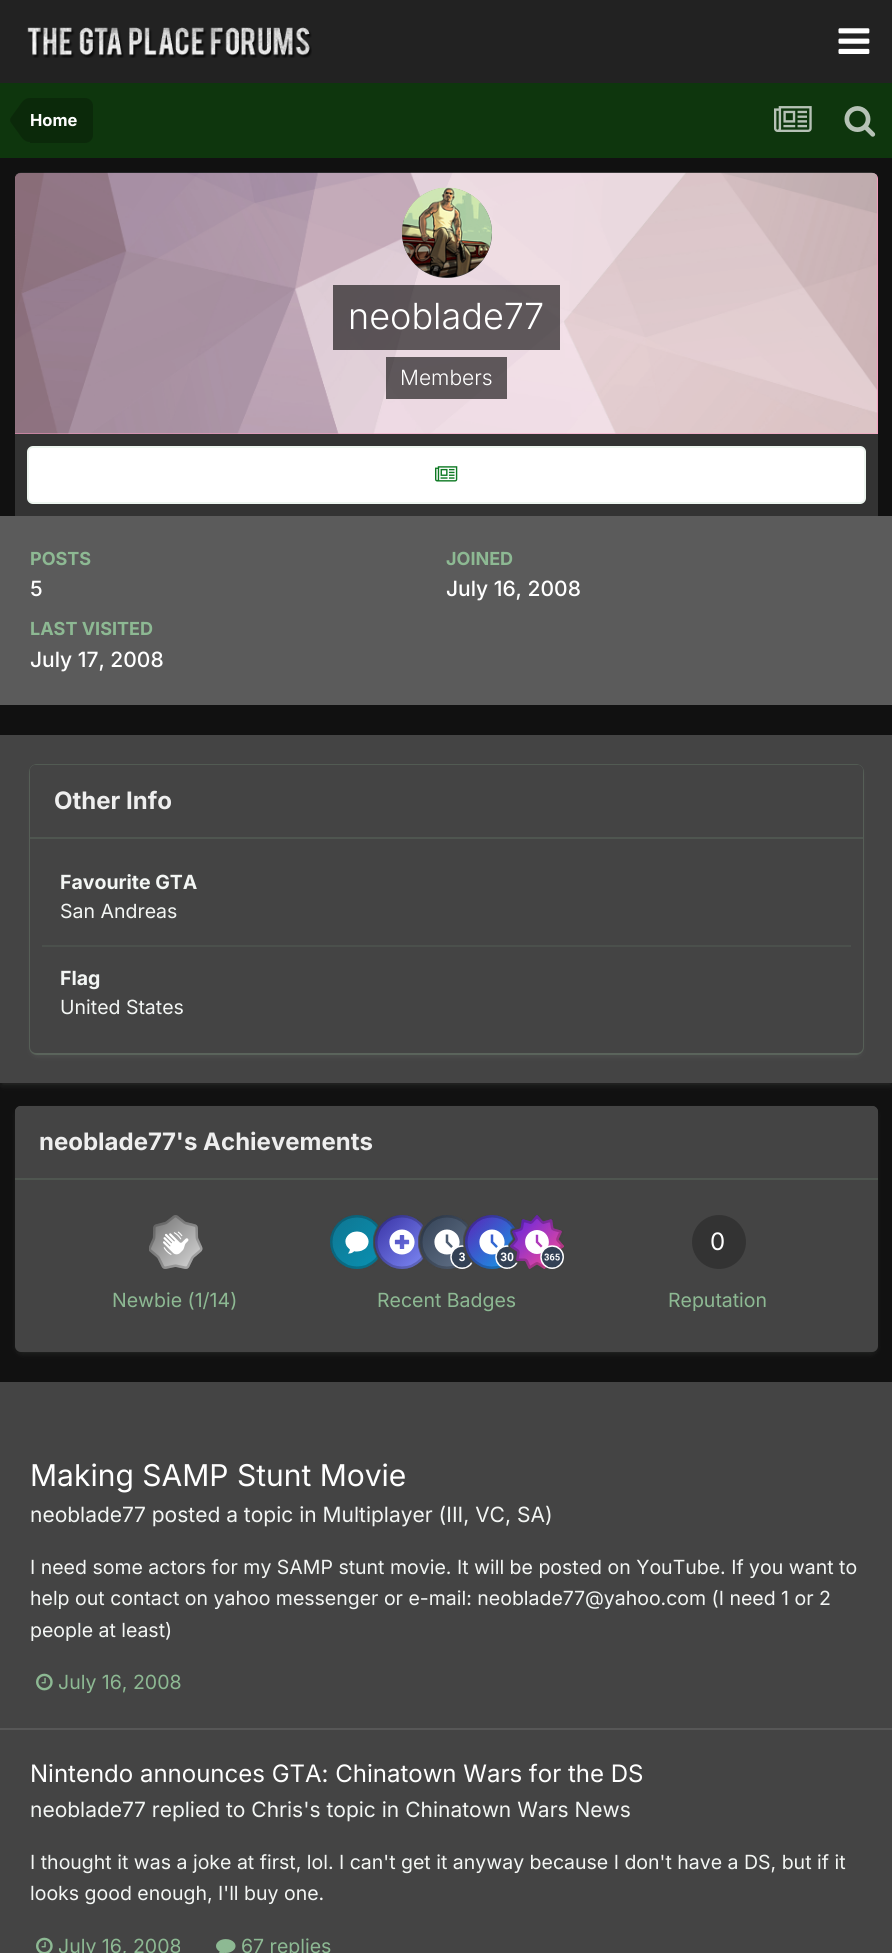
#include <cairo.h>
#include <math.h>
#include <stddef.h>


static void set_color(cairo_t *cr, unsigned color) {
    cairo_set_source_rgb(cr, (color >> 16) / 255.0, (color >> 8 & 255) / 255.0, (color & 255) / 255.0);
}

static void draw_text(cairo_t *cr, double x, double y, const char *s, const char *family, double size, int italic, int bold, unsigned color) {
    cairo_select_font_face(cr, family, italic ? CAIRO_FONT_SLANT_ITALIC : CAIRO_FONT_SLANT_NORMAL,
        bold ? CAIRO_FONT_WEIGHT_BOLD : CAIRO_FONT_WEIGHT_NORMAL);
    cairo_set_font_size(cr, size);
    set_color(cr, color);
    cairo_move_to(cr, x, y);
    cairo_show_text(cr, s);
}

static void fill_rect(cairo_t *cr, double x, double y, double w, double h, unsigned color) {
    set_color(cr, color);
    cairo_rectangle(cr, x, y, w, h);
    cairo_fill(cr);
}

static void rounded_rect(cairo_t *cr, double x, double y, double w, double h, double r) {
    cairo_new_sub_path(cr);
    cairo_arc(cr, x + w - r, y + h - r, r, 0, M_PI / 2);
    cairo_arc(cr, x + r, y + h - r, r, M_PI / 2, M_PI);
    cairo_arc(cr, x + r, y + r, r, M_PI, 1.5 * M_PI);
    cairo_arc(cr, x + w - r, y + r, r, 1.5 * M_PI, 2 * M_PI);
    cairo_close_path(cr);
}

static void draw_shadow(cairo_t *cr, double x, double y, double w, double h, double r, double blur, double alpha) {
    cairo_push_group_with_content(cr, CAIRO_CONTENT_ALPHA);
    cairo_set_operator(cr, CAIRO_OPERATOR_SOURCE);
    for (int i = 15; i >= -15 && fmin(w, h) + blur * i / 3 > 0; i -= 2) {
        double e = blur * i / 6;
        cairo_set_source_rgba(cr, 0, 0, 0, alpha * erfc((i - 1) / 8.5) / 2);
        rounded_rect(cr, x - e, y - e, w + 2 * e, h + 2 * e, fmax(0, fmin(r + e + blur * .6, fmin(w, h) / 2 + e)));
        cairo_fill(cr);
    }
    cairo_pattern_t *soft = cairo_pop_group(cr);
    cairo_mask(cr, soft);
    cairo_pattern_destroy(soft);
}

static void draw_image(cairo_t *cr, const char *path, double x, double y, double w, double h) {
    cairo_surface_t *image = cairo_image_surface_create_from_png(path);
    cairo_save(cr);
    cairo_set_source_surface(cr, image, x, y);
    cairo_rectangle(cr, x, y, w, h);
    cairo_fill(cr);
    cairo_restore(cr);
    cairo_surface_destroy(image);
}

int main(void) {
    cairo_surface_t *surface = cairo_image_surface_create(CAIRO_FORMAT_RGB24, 892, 1953);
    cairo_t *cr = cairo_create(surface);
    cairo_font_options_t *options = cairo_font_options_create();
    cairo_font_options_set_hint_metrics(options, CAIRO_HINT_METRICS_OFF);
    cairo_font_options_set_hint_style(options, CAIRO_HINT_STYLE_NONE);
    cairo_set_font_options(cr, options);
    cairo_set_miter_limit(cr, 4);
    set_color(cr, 0x111111);
    cairo_paint(cr);
    fill_rect(cr, 0, 0, 892, 83, 0x222222);
    draw_image(cr, "assets/img1.png", 27, 27, 285, 31);
    draw_image(cr, "assets/img2.png", 838, 28, 32, 26);
    fill_rect(cr, 0, 83, 892, 75, 0x0E360D);
    set_color(cr, 0x0B290A);
    cairo_new_path(cr);
    cairo_move_to(cr, 30, 98);
    cairo_line_to(cr, 85, 98);
    cairo_curve_to(cr, 89.5, 98, 93, 101.5, 93, 106);
    cairo_line_to(cr, 93, 135);
    cairo_curve_to(cr, 93, 139.5, 89.5, 143, 85, 143);
    cairo_line_to(cr, 30, 143);
    cairo_close_path(cr);
    cairo_fill(cr);
    cairo_new_path(cr);
    cairo_move_to(cr, 30, 120);
    cairo_line_to(cr, 30, 142);
    cairo_curve_to(cr, 27, 142, 24.5, 141, 22, 138);
    cairo_line_to(cr, 10.5, 122);
    cairo_line_to(cr, 10, 120);
    cairo_close_path(cr);
    cairo_move_to(cr, 30, 120);
    cairo_line_to(cr, 10, 120);
    cairo_line_to(cr, 10.5, 118);
    cairo_line_to(cr, 22, 102);
    cairo_curve_to(cr, 24.5, 99, 27, 98, 30, 98);
    cairo_close_path(cr);
    cairo_fill(cr);
    draw_text(cr, 30, 126, "Home", "Inter", 16.5, 0, 1, 0xFFFFFF);
    draw_image(cr, "assets/img3.png", 774, 106, 38, 26);
    draw_image(cr, "assets/img4.png", 844, 106, 32, 31);
    set_color(cr, 0xFF99C2);
    cairo_new_path(cr);
    cairo_move_to(cr, 21, 173);
    cairo_line_to(cr, 872, 173);
    cairo_curve_to(cr, 875.5, 173, 878, 175.5, 878, 179);
    cairo_line_to(cr, 878, 434);
    cairo_line_to(cr, 15, 434);
    cairo_line_to(cr, 15, 179);
    cairo_curve_to(cr, 15, 175.5, 17.5, 173, 21, 173);
    cairo_close_path(cr);
    cairo_fill(cr);
    draw_image(cr, "assets/img5.png", 15, 172, 863, 262);
    set_color(cr, 0x444444);
    cairo_arc(cr, 447, 233, 45, 0, 2 * M_PI);
    cairo_fill(cr);
    draw_image(cr, "assets/img6.png", 402, 187, 90, 91);
    cairo_set_source_rgba(cr, 0, 0, 0, 0.6);
    cairo_rectangle(cr, 333, 285, 227, 65);
    cairo_fill(cr);
    draw_text(cr, 348, 329, "neoblade77", "Inter Light", 36, 0, 0, 0xFFFFFF);
    cairo_set_source_rgba(cr, 0, 0, 0, 0.6);
    cairo_rectangle(cr, 386, 357, 121, 42);
    cairo_fill(cr);
    draw_text(cr, 400, 385, "Members", "Inter Light", 21, 0, 0, 0xFFFFFF);
    fill_rect(cr, 15, 434, 863, 82, 0x333333);
    set_color(cr, 0xFFFFFF);
    rounded_rect(cr, 27, 446, 839, 58, 6);
    cairo_fill(cr);
    rounded_rect(cr, 28, 447, 837, 56, 5);
    cairo_set_source_rgba(cr, 0.055, 0.475, 0.137, 0.07);
    cairo_stroke(cr);
    draw_image(cr, "assets/img7.png", 435, 466, 23, 16);
    fill_rect(cr, 0, 516, 892, 189, 0x5B5B5B);
    draw_text(cr, 30, 565, "POSTS", "Inter", 18, 0, 1, 0x8DB993);
    draw_text(cr, 30, 596, "5", "Inter Medium", 21, 0, 0, 0xFFFFFF);
    draw_text(cr, 446, 565, "JOINED", "Inter", 18, 0, 1, 0x8DB993);
    draw_text(cr, 446, 596, "July 16, 2008", "Inter Medium", 21, 0, 0, 0xFFFFFF);
    draw_text(cr, 30, 635, "LAST VISITED", "Inter", 18, 0, 1, 0x8DB993);
    draw_text(cr, 30, 667, "July 17, 2008", "Inter Medium", 21, 0, 0, 0xFFFFFF);
    set_color(cr, 0xEDF7EF);
    draw_shadow(cr, 2, 740, 889, 345, 0, 3, 0.1);
    fill_rect(cr, 0, 735, 892, 348, 0x444444);
    set_color(cr, 0xEDF7EF);
    draw_shadow(cr, 32, 770, 829, 285, 5, 3, 0.1);
    rounded_rect(cr, 30, 765, 833, 289, 7);
    cairo_set_source_rgba(cr, 0.553, 0.725, 0.576, 0.2);
    cairo_stroke(cr);
    set_color(cr, 0x444444);
    rounded_rect(cr, 30, 765, 833, 288, 6);
    cairo_fill(cr);
    cairo_new_path(cr);
    cairo_move_to(cr, 36, 765);
    cairo_line_to(cr, 857, 765);
    cairo_curve_to(cr, 860.5, 765, 863, 767.5, 863, 771);
    cairo_line_to(cr, 863, 839);
    cairo_line_to(cr, 30, 839);
    cairo_line_to(cr, 30, 771);
    cairo_curve_to(cr, 30, 767.5, 32.5, 765, 36, 765);
    cairo_close_path(cr);
    cairo_fill(cr);
    fill_rect(cr, 30, 837, 833, 2, 0x4F5650);
    draw_text(cr, 54, 809, "Other Info", "Inter", 24, 0, 1, 0xEEEEEE);
    fill_rect(cr, 42, 945, 809, 2, 0x4B504C);
    draw_text(cr, 60, 889, "Favourite GTA", "Inter", 19.5, 0, 1, 0xF3F6F4);
    draw_text(cr, 60, 918, "San Andreas", "Inter", 19.5, 0, 0, 0xF3F6F4);
    draw_text(cr, 60, 985, "Flag", "Inter", 19.5, 0, 1, 0xF3F6F4);
    draw_text(cr, 60, 1014, "United States", "Inter", 19.5, 0, 0, 0xF3F6F4);
    set_color(cr, 0xEDF7EF);
    draw_shadow(cr, 17, 1110, 859, 243, 5, 3, 0.1);
    set_color(cr, 0x444444);
    rounded_rect(cr, 15, 1106, 863, 246, 6);
    cairo_fill(cr);
    cairo_new_path(cr);
    cairo_move_to(cr, 21, 1106);
    cairo_line_to(cr, 872, 1106);
    cairo_curve_to(cr, 875.5, 1106, 878, 1108.5, 878, 1112);
    cairo_line_to(cr, 878, 1179);
    cairo_line_to(cr, 15, 1179);
    cairo_line_to(cr, 15, 1112);
    cairo_curve_to(cr, 15, 1108.5, 17.5, 1106, 21, 1106);
    cairo_close_path(cr);
    cairo_fill(cr);
    fill_rect(cr, 15, 1178, 863, 2, 0x4F5650);
    draw_text(cr, 39, 1150, "neoblade77's Achievements", "Inter", 24, 0, 1, 0xEEEEEE);
    draw_image(cr, "assets/img8.png", 149, 1215, 54, 54);
    draw_text(cr, 112, 1307, "Newbie (1/14)", "Inter", 19.5, 0, 0, 0x8DB993);
    draw_image(cr, "assets/img9.png", 330, 1215, 51, 54);
    draw_image(cr, "assets/img10.png", 373, 1215, 53, 54);
    draw_image(cr, "assets/img11.png", 418, 1215, 56, 54);
    draw_image(cr, "assets/img12.png", 463, 1215, 56, 54);
    draw_image(cr, "assets/img13.png", 508, 1215, 56, 54);
    draw_text(cr, 377, 1307, "Recent Badges", "Inter", 19.5, 0, 0, 0x8DB993);
    set_color(cr, 0x333333);
    cairo_new_path(cr);
    cairo_arc(cr, 719, 1242, 27, 0, 2 * M_PI);
    cairo_fill(cr);
    draw_text(cr, 710, 1250, "0", "Inter", 24, 0, 0, 0xFFFFFF);
    draw_text(cr, 668, 1307, "Reputation", "Inter", 19.5, 0, 0, 0x8DB993);
    fill_rect(cr, 0, 1382, 892, 571, 0x444444);
    fill_rect(cr, 0, 1728, 892, 2, 0x575757);
    draw_text(cr, 30, 1486, "Making SAMP Stunt Movie", "Inter", 30, 0, 0, 0xFFFFFF);
    draw_text(cr, 30, 1522, "neoblade77 posted a topic in Multiplayer (III, VC, SA)", "Inter", 21, 0, 0, 0xF3F6F4);
    draw_text(cr, 30, 1574, "I need some actors for my SAMP stunt movie. It will be posted on YouTube. If you want to", "Inter", 19.5, 0, 0, 0xF3F6F4);
    draw_text(cr, 30, 1605, "help out contact on yahoo messenger or e-mail: neoblade77@yahoo.com (I need 1 or 2", "Inter", 19.5, 0, 0, 0xF3F6F4);
    draw_text(cr, 30, 1637, "people at least)", "Inter", 19.5, 0, 0, 0xF3F6F4);
    draw_image(cr, "assets/img14.png", 36, 1673, 17, 18);
    draw_text(cr, 58, 1689, "July 16, 2008", "Inter", 19.5, 0, 0, 0x8DB993);
    draw_text(cr, 30, 1782, "Nintendo announces GTA: Chinatown Wars for the DS", "Inter", 24, 0, 0, 0xFFFFFF);
    draw_text(cr, 30, 1817, "neoblade77 replied to Chris's topic in Chinatown Wars News", "Inter", 21, 0, 0, 0xF3F6F4);
    draw_text(cr, 30, 1869, "I thought it was a joke at first, lol. I can't get it anyway because I don't have a DS, but if it", "Inter", 19.5, 0, 0, 0xF3F6F4);
    draw_text(cr, 30, 1900, "looks good enough, I'll buy one.", "Inter", 19.5, 0, 0, 0xF3F6F4);
    draw_image(cr, "assets/img15.png", 36, 1937, 17, 16);
    draw_text(cr, 58, 1953, "July 16, 2008", "Inter", 19.5, 0, 0, 0x8DB993);
    draw_image(cr, "assets/img16.png", 216, 1939, 20, 14);
    draw_text(cr, 241, 1953, "67 replies", "Inter", 19.5, 0, 0, 0x8DB993);
    cairo_surface_write_to_png(surface, "output.png");
    cairo_font_options_destroy(options);
    cairo_destroy(cr);
    cairo_surface_destroy(surface);
    return 0;
}
